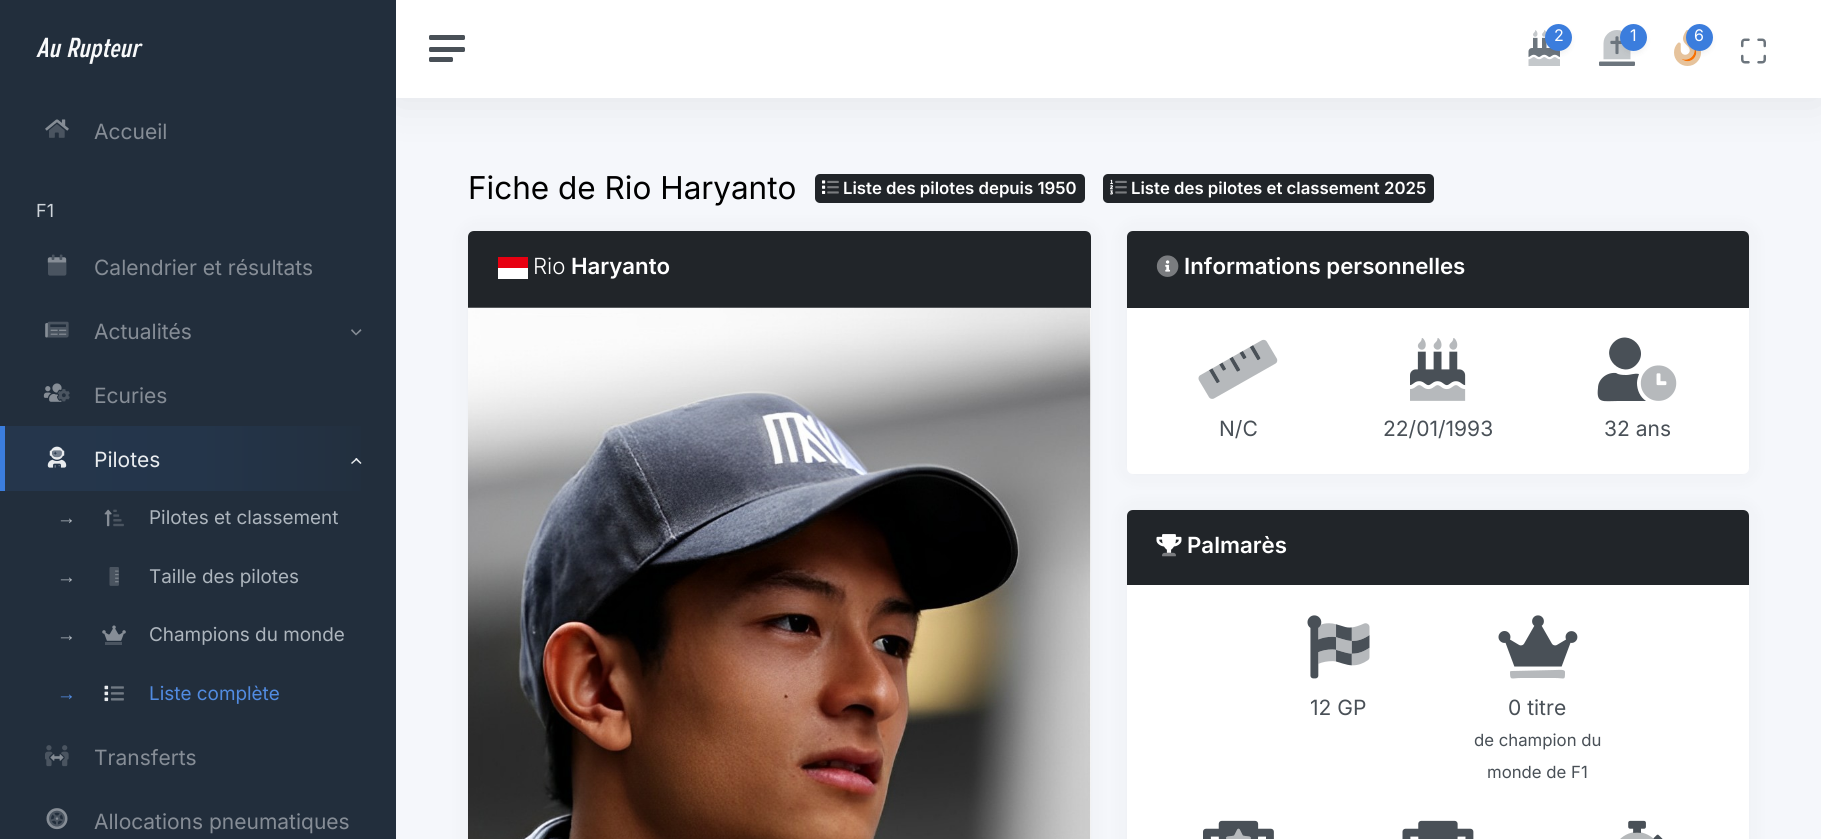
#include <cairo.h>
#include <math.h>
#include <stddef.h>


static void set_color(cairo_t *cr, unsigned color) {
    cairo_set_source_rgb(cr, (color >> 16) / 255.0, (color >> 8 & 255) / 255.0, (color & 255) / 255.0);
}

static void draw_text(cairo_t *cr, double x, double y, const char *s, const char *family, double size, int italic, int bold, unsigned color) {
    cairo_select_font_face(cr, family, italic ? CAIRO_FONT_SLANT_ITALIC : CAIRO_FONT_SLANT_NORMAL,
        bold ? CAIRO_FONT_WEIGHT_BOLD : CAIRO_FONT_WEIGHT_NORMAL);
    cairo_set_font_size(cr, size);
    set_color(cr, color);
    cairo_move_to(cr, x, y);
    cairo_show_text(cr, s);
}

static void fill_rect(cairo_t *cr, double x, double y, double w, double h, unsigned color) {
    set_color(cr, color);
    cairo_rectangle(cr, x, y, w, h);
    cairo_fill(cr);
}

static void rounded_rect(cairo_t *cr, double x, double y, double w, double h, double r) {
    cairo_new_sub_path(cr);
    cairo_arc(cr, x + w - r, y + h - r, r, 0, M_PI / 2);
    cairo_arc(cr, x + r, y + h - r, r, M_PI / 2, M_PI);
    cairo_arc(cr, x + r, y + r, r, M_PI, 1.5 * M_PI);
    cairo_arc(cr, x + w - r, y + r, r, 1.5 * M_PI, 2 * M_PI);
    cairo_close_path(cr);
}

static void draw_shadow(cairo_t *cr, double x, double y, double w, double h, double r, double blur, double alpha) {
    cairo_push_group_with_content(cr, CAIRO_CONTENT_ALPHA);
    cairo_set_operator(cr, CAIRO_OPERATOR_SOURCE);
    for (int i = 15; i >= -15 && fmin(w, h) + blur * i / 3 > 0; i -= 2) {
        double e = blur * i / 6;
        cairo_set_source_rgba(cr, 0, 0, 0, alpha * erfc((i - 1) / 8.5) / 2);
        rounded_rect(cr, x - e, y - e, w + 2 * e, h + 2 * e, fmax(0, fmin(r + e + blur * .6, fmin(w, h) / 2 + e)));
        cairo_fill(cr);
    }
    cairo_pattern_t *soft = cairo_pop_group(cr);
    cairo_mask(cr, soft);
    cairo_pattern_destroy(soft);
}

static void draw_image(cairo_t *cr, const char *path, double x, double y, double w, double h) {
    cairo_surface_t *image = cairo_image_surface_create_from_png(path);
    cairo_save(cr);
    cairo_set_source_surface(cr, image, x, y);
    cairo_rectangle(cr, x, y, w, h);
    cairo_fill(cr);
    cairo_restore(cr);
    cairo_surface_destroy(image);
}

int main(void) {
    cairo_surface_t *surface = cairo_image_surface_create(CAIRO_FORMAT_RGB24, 1821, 839);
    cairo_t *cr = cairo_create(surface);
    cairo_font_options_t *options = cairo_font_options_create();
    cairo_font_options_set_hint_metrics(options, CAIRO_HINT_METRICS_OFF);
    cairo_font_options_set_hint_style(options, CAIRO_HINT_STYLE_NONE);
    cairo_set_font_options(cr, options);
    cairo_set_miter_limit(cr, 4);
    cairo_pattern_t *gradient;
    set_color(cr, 0x222E3C);
    cairo_paint(cr);
    draw_text(cr, 36, 57, "Au Rupteur", "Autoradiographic", 27.5, 1, 0, 0xF8F9FA);
    draw_image(cr, "assets/img1.png", 45, 119, 24, 12);
    draw_image(cr, "assets/img2.png", 49, 124, 16, 14);
    draw_text(cr, 94, 139, "Accueil", "Inter", 21, 0, 0, 0x868D96);
    draw_text(cr, 36, 217, "F1", "Inter", 18, 0, 0, 0xCED4DA);
    draw_image(cr, "assets/img4.png", 47, 257, 20, 6);
    draw_image(cr, "assets/img3.png", 48, 254, 19, 22);
    draw_text(cr, 94, 275, "Calendrier et résultats", "Inter", 21, 0, 0, 0x868D96);
    draw_image(cr, "assets/img6.png", 45, 323, 22, 15);
    draw_image(cr, "assets/img5.png", 47, 321, 22, 17);
    draw_text(cr, 94, 339, "Actualités", "Inter", 21, 0, 0, 0x868D96);
    cairo_new_path(cr);
    cairo_move_to(cr, 361.5, 330.5);
    cairo_line_to(cr, 356, 335.5);
    cairo_line_to(cr, 356, 333.5);
    cairo_line_to(cr, 360.5, 329);
    cairo_close_path(cr);
    cairo_move_to(cr, 356, 335.5);
    cairo_line_to(cr, 351, 330.5);
    cairo_line_to(cr, 352, 329);
    cairo_line_to(cr, 356, 333.5);
    cairo_close_path(cr);
    cairo_fill(cr);
    draw_image(cr, "assets/img7.png", 43, 383, 19, 19);
    draw_image(cr, "assets/img8.png", 58, 389, 12, 13);
    draw_text(cr, 94, 403, "Ecuries", "Inter", 21, 0, 0, 0x868D96);
    gradient = cairo_pattern_create_linear(4.5, 458, 396, 458);
    cairo_pattern_add_color_stop_rgba(gradient, 0, 0.145, 0.212, 0.298, 1);
    cairo_pattern_add_color_stop_rgba(gradient, 0.5, 0.141, 0.208, 0.29, 1);
    cairo_pattern_add_color_stop_rgba(gradient, 1, 0.133, 0.18, 0.235, 1);
    cairo_set_source(cr, gradient);
    cairo_pattern_destroy(gradient);
    cairo_rectangle(cr, 5, 426, 356, 65);
    cairo_fill(cr);
    fill_rect(cr, 0, 426, 5, 65, 0x3B7DDD);
    draw_image(cr, "assets/img9.png", 47, 446, 20, 22);
    draw_image(cr, "assets/img10.png", 52, 450, 10, 18);
    draw_text(cr, 94, 467, "Pilotes", "Inter", 21, 0, 0, 0xE9ECEF);
    cairo_new_path(cr);
    cairo_move_to(cr, 352, 464);
    cairo_line_to(cr, 351, 463);
    cairo_line_to(cr, 356.5, 458);
    cairo_line_to(cr, 357.5, 459);
    cairo_close_path(cr);
    cairo_fill(cr);
    cairo_new_path(cr);
    cairo_move_to(cr, 360.5, 464);
    cairo_line_to(cr, 355, 459);
    cairo_line_to(cr, 356.5, 458);
    cairo_line_to(cr, 361.5, 463);
    cairo_close_path(cr);
    cairo_fill(cr);
    draw_text(cr, 57, 524, "→", "Liberation Sans", 18.9, 0, 0, 0xADB5BD);
    draw_image(cr, "assets/img11.png", 104, 509, 8, 18);
    draw_image(cr, "assets/img12.png", 113, 509, 11, 18);
    draw_text(cr, 149, 524, "Pilotes et classement", "Inter", 18.9, 0, 0, 0xADB5BD);
    draw_text(cr, 57, 583, "→", "Liberation Sans", 18.9, 0, 0, 0xADB5BD);
    draw_image(cr, "assets/img14.png", 115, 570, 4, 13);
    draw_image(cr, "assets/img13.png", 109, 567, 10, 19);
    draw_text(cr, 149, 583, "Taille des pilotes", "Inter", 18.9, 0, 0, 0xADB5BD);
    draw_text(cr, 57, 641, "→", "Liberation Sans", 18.9, 0, 0, 0xADB5BD);
    draw_image(cr, "assets/img15.png", 102, 625, 24, 16);
    fill_rect(cr, 105, 642, 17, 3, 0x4A5460);
    draw_text(cr, 149, 641, "Champions du monde", "Inter", 18.9, 0, 0, 0xADB5BD);
    draw_text(cr, 57, 700, "→", "Liberation Sans", 18.9, 0, 0, 0x518BE1);
    draw_image(cr, "assets/img16.png", 104, 685, 5, 17);
    draw_image(cr, "assets/img17.png", 110, 686, 14, 15);
    draw_text(cr, 149, 700, "Liste complète", "Inter", 18.9, 0, 0, 0x518BE1);
    draw_image(cr, "assets/img19.png", 50, 754, 14, 7);
    draw_image(cr, "assets/img18.png", 45, 745, 24, 22);
    draw_text(cr, 94, 765, "Transferts", "Inter", 21, 0, 0, 0x868D96);
    draw_image(cr, "assets/img20.png", 46, 808, 22, 22);
    draw_image(cr, "assets/img21.png", 49, 810, 16, 17);
    draw_text(cr, 94, 829, "Allocations pneumatiques", "Inter", 21, 0, 0, 0x868D96);
    fill_rect(cr, 396, 98, 1425, 741, 0xF5F7FB);
    cairo_save(cr);
    cairo_rectangle(cr, 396, 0, 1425, 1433);
    cairo_clip(cr);
    set_color(cr, 0x212529);
    draw_shadow(cr, 396, 0, 1425, 98, 0, 24, 0.1);
    cairo_restore(cr);
    fill_rect(cr, 396, 0, 1425, 98, 0xFFFFFF);
    set_color(cr, 0x495057);
    rounded_rect(cr, 429, 47, 36, 5, 1.5);
    cairo_fill(cr);
    rounded_rect(cr, 429, 35, 36, 5, 1.5);
    cairo_fill(cr);
    rounded_rect(cr, 429, 57, 24, 5, 1.5);
    cairo_fill(cr);
    draw_image(cr, "assets/img23.png", 1528, 37, 32, 20);
    draw_image(cr, "assets/img22.png", 1528, 30, 32, 36);
    set_color(cr, 0x000000);
    draw_shadow(cr, 1545, 27, 27, 27, 13.5, 2.5, 0.05);
    set_color(cr, 0x3B7DDD);
    cairo_arc(cr, 1558.5, 37.5, 13.5, 0, 2 * M_PI);
    cairo_fill(cr);
    draw_text(cr, 1554, 41, "2", "Inter", 16, 0, 0, 0xFFFFFF);
    draw_image(cr, "assets/img25.png", 1599, 36, 36, 30);
    draw_image(cr, "assets/img24.png", 1603, 30, 28, 30);
    set_color(cr, 0x000000);
    draw_shadow(cr, 1620, 27, 27, 27, 13.5, 2.5, 0.05);
    set_color(cr, 0x3B7DDD);
    cairo_arc(cr, 1633.5, 37.5, 13.5, 0, 2 * M_PI);
    cairo_fill(cr);
    draw_text(cr, 1630, 41, "1", "Inter", 16, 0, 0, 0xFFFFFF);
    draw_image(cr, "assets/img27.png", 1681, 49, 16, 13);
    draw_image(cr, "assets/img26.png", 1674, 30, 27, 36);
    set_color(cr, 0x000000);
    draw_shadow(cr, 1686, 27, 27, 27, 13.5, 2.5, 0.05);
    set_color(cr, 0x3B7DDD);
    cairo_arc(cr, 1699.5, 37.5, 13.5, 0, 2 * M_PI);
    cairo_fill(cr);
    draw_text(cr, 1694, 41, "6", "Inter", 16, 0, 0, 0xFFFFFF);
    draw_image(cr, "assets/img28.png", 1741, 38, 25, 26);
    draw_text(cr, 468, 199, "Fiche de Rio Haryanto", "Inter", 31.5, 0, 0, 0x000000);
    set_color(cr, 0x212529);
    rounded_rect(cr, 815, 174, 270, 29, 5);
    cairo_fill(cr);
    draw_image(cr, "assets/img29.png", 822, 180, 4, 14);
    draw_image(cr, "assets/img30.png", 827, 180, 12, 14);
    draw_text(cr, 843, 194, "Liste des pilotes depuis 1950", "Inter SemiBold", 16.75, 0, 0, 0xFFFFFF);
    set_color(cr, 0x212529);
    rounded_rect(cr, 1103, 174, 331, 29, 5);
    cairo_fill(cr);
    draw_image(cr, "assets/img31.png", 1110, 179, 3, 16);
    draw_image(cr, "assets/img30.png", 1115, 180, 12, 14);
    draw_text(cr, 1131, 194, "Liste des pilotes et classement 2025", "Inter SemiBold", 16.75, 0, 0, 0xFFFFFF);
    set_color(cr, 0x212529);
    draw_shadow(cr, 468, 231, 623, 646, 6, 10.5, 0.05);
    set_color(cr, 0xFFFFFF);
    rounded_rect(cr, 468, 231, 623, 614, 6);
    cairo_fill(cr);
    set_color(cr, 0x212529);
    cairo_new_path(cr);
    cairo_move_to(cr, 474, 231);
    cairo_line_to(cr, 1085, 231);
    cairo_curve_to(cr, 1088.5, 231, 1091, 233.5, 1091, 237);
    cairo_line_to(cr, 1091, 308);
    cairo_line_to(cr, 468, 308);
    cairo_line_to(cr, 468, 237);
    cairo_curve_to(cr, 468, 233.5, 470.5, 231, 474, 231);
    cairo_close_path(cr);
    cairo_fill(cr);
    fill_rect(cr, 498, 257, 30, 11, 0xE70011);
    fill_rect(cr, 498, 268, 30, 11, 0xFFFFFF);
    draw_text(cr, 533, 274, "Rio", "Inter Light", 22.25, 0, 0, 0xFFFFFF);
    draw_text(cr, 571, 274, "Haryanto", "Inter SemiBold", 22.25, 0, 0, 0xFFFFFF);
    draw_image(cr, "assets/img32.png", 468, 307, 623, 532);
    set_color(cr, 0x212529);
    draw_shadow(cr, 1127, 231, 622, 243, 6, 10.5, 0.05);
    set_color(cr, 0xFFFFFF);
    rounded_rect(cr, 1127, 231, 622, 243, 6);
    cairo_fill(cr);
    set_color(cr, 0x212529);
    cairo_new_path(cr);
    cairo_move_to(cr, 1133, 231);
    cairo_line_to(cr, 1743, 231);
    cairo_curve_to(cr, 1746.5, 231, 1749, 233.5, 1749, 237);
    cairo_line_to(cr, 1749, 308);
    cairo_line_to(cr, 1127, 308);
    cairo_line_to(cr, 1127, 237);
    cairo_curve_to(cr, 1127, 233.5, 1129.5, 231, 1133, 231);
    cairo_close_path(cr);
    cairo_fill(cr);
    draw_image(cr, "assets/img34.png", 1165, 260, 6, 12);
    draw_image(cr, "assets/img33.png", 1156, 255, 23, 22);
    draw_text(cr, 1184, 274, "Informations personnelles", "Inter SemiBold", 22.25, 0, 0, 0xFFFFFF);
    draw_image(cr, "assets/img36.png", 1209, 345, 52, 39);
    draw_image(cr, "assets/img35.png", 1198, 339, 80, 60);
    draw_text(cr, 1219, 436, "N/C", "Inter", 21, 0, 0, 0x495057);
    draw_image(cr, "assets/img38.png", 1410, 351, 56, 35);
    draw_image(cr, "assets/img37.png", 1410, 338, 56, 63);
    draw_text(cr, 1383, 436, "22/01/1993", "Inter", 21, 0, 0, 0x495057);
    cairo_new_path(cr);
    cairo_move_to(cr, 1636, 365);
    cairo_curve_to(cr, 1622, 379, 1599, 357, 1614, 342);
    cairo_curve_to(cr, 1629, 328, 1651, 350, 1636, 365);
    cairo_close_path(cr);
    cairo_move_to(cr, 1637, 383);
    cairo_curve_to(cr, 1637, 390, 1640, 397, 1646, 401);
    cairo_line_to(cr, 1618, 401);
    cairo_curve_to(cr, 1603, 401, 1596, 404, 1598, 388);
    cairo_curve_to(cr, 1598, 379, 1607, 372, 1616, 373);
    cairo_line_to(cr, 1618, 374);
    cairo_curve_to(cr, 1621, 375, 1624, 375, 1626, 375);
    cairo_curve_to(cr, 1631, 375, 1634, 373, 1639, 374);
    cairo_curve_to(cr, 1638, 377, 1637, 380, 1637, 383);
    cairo_close_path(cr);
    cairo_fill(cr);
    draw_image(cr, "assets/img39.png", 1640, 365, 37, 36);
    draw_text(cr, 1604, 436, "32 ans", "Inter", 21, 0, 0, 0x495057);
    set_color(cr, 0x212529);
    draw_shadow(cr, 1127, 510, 622, 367, 6, 10.5, 0.05);
    set_color(cr, 0xFFFFFF);
    rounded_rect(cr, 1127, 510, 622, 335, 6);
    cairo_fill(cr);
    set_color(cr, 0x212529);
    cairo_new_path(cr);
    cairo_move_to(cr, 1133, 510);
    cairo_line_to(cr, 1743, 510);
    cairo_curve_to(cr, 1746.5, 510, 1749, 512.5, 1749, 516);
    cairo_line_to(cr, 1749, 585);
    cairo_line_to(cr, 1127, 585);
    cairo_line_to(cr, 1127, 516);
    cairo_curve_to(cr, 1127, 512.5, 1129.5, 510, 1133, 510);
    cairo_close_path(cr);
    cairo_fill(cr);
    draw_image(cr, "assets/img40.png", 1156, 534, 26, 19);
    draw_image(cr, "assets/img41.png", 1162, 552, 14, 5);
    draw_text(cr, 1187, 553, "Palmarès", "Inter SemiBold", 22.25, 0, 0, 0xFFFFFF);
    draw_image(cr, "assets/img42.png", 1307, 615, 63, 64);
    draw_image(cr, "assets/img43.png", 1318, 623, 52, 43);
    draw_text(cr, 1310, 715, "12 GP", "Inter", 21, 0, 0, 0x495057);
    draw_image(cr, "assets/img44.png", 1498, 615, 80, 52);
    set_color(cr, 0xB6B9BC);
    cairo_new_path(cr);
    cairo_move_to(cr, 1565, 672);
    cairo_curve_to(cr, 1565, 681, 1565, 678, 1555, 678);
    cairo_line_to(cr, 1521, 678);
    cairo_curve_to(cr, 1511, 678, 1510, 681, 1510, 672);
    cairo_curve_to(cr, 1510, 671, 1511, 671, 1512, 671);
    cairo_line_to(cr, 1555, 670);
    cairo_curve_to(cr, 1559, 670, 1565, 669, 1565, 672);
    cairo_close_path(cr);
    cairo_fill(cr);
    draw_text(cr, 1508, 715, "0 titre", "Inter", 21, 0, 0, 0x495057);
    draw_text(cr, 1474, 746, "de champion du", "Inter", 16.75, 0, 0, 0x495057);
    draw_text(cr, 1487, 778, "monde de F1", "Inter", 16.75, 0, 0, 0x495057);
    draw_image(cr, "assets/img45.png", 1203, 820, 71, 19);
    draw_image(cr, "assets/img46.png", 1226, 829, 25, 10);
    draw_image(cr, "assets/img47.png", 1402, 820, 72, 19);
    draw_image(cr, "assets/img48.png", 1628, 820, 35, 19);
    cairo_set_source_rgba(cr, 0.286, 0.314, 0.341, 0.4);
    cairo_new_path(cr);
    cairo_move_to(cr, 1619, 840);
    cairo_curve_to(cr, 1643, 816, 1679, 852, 1655, 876);
    cairo_curve_to(cr, 1631, 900, 1595, 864, 1619, 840);
    cairo_close_path(cr);
    cairo_move_to(cr, 1641, 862);
    cairo_line_to(cr, 1641, 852);
    cairo_curve_to(cr, 1641, 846, 1642, 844, 1637, 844);
    cairo_curve_to(cr, 1633, 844, 1633, 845, 1633, 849);
    cairo_line_to(cr, 1633, 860);
    cairo_curve_to(cr, 1633, 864, 1633, 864, 1637, 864);
    cairo_curve_to(cr, 1639, 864, 1641, 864, 1641, 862);
    cairo_close_path(cr);
    cairo_fill(cr);
    cairo_surface_write_to_png(surface, "output.png");
    cairo_font_options_destroy(options);
    cairo_destroy(cr);
    cairo_surface_destroy(surface);
    return 0;
}
